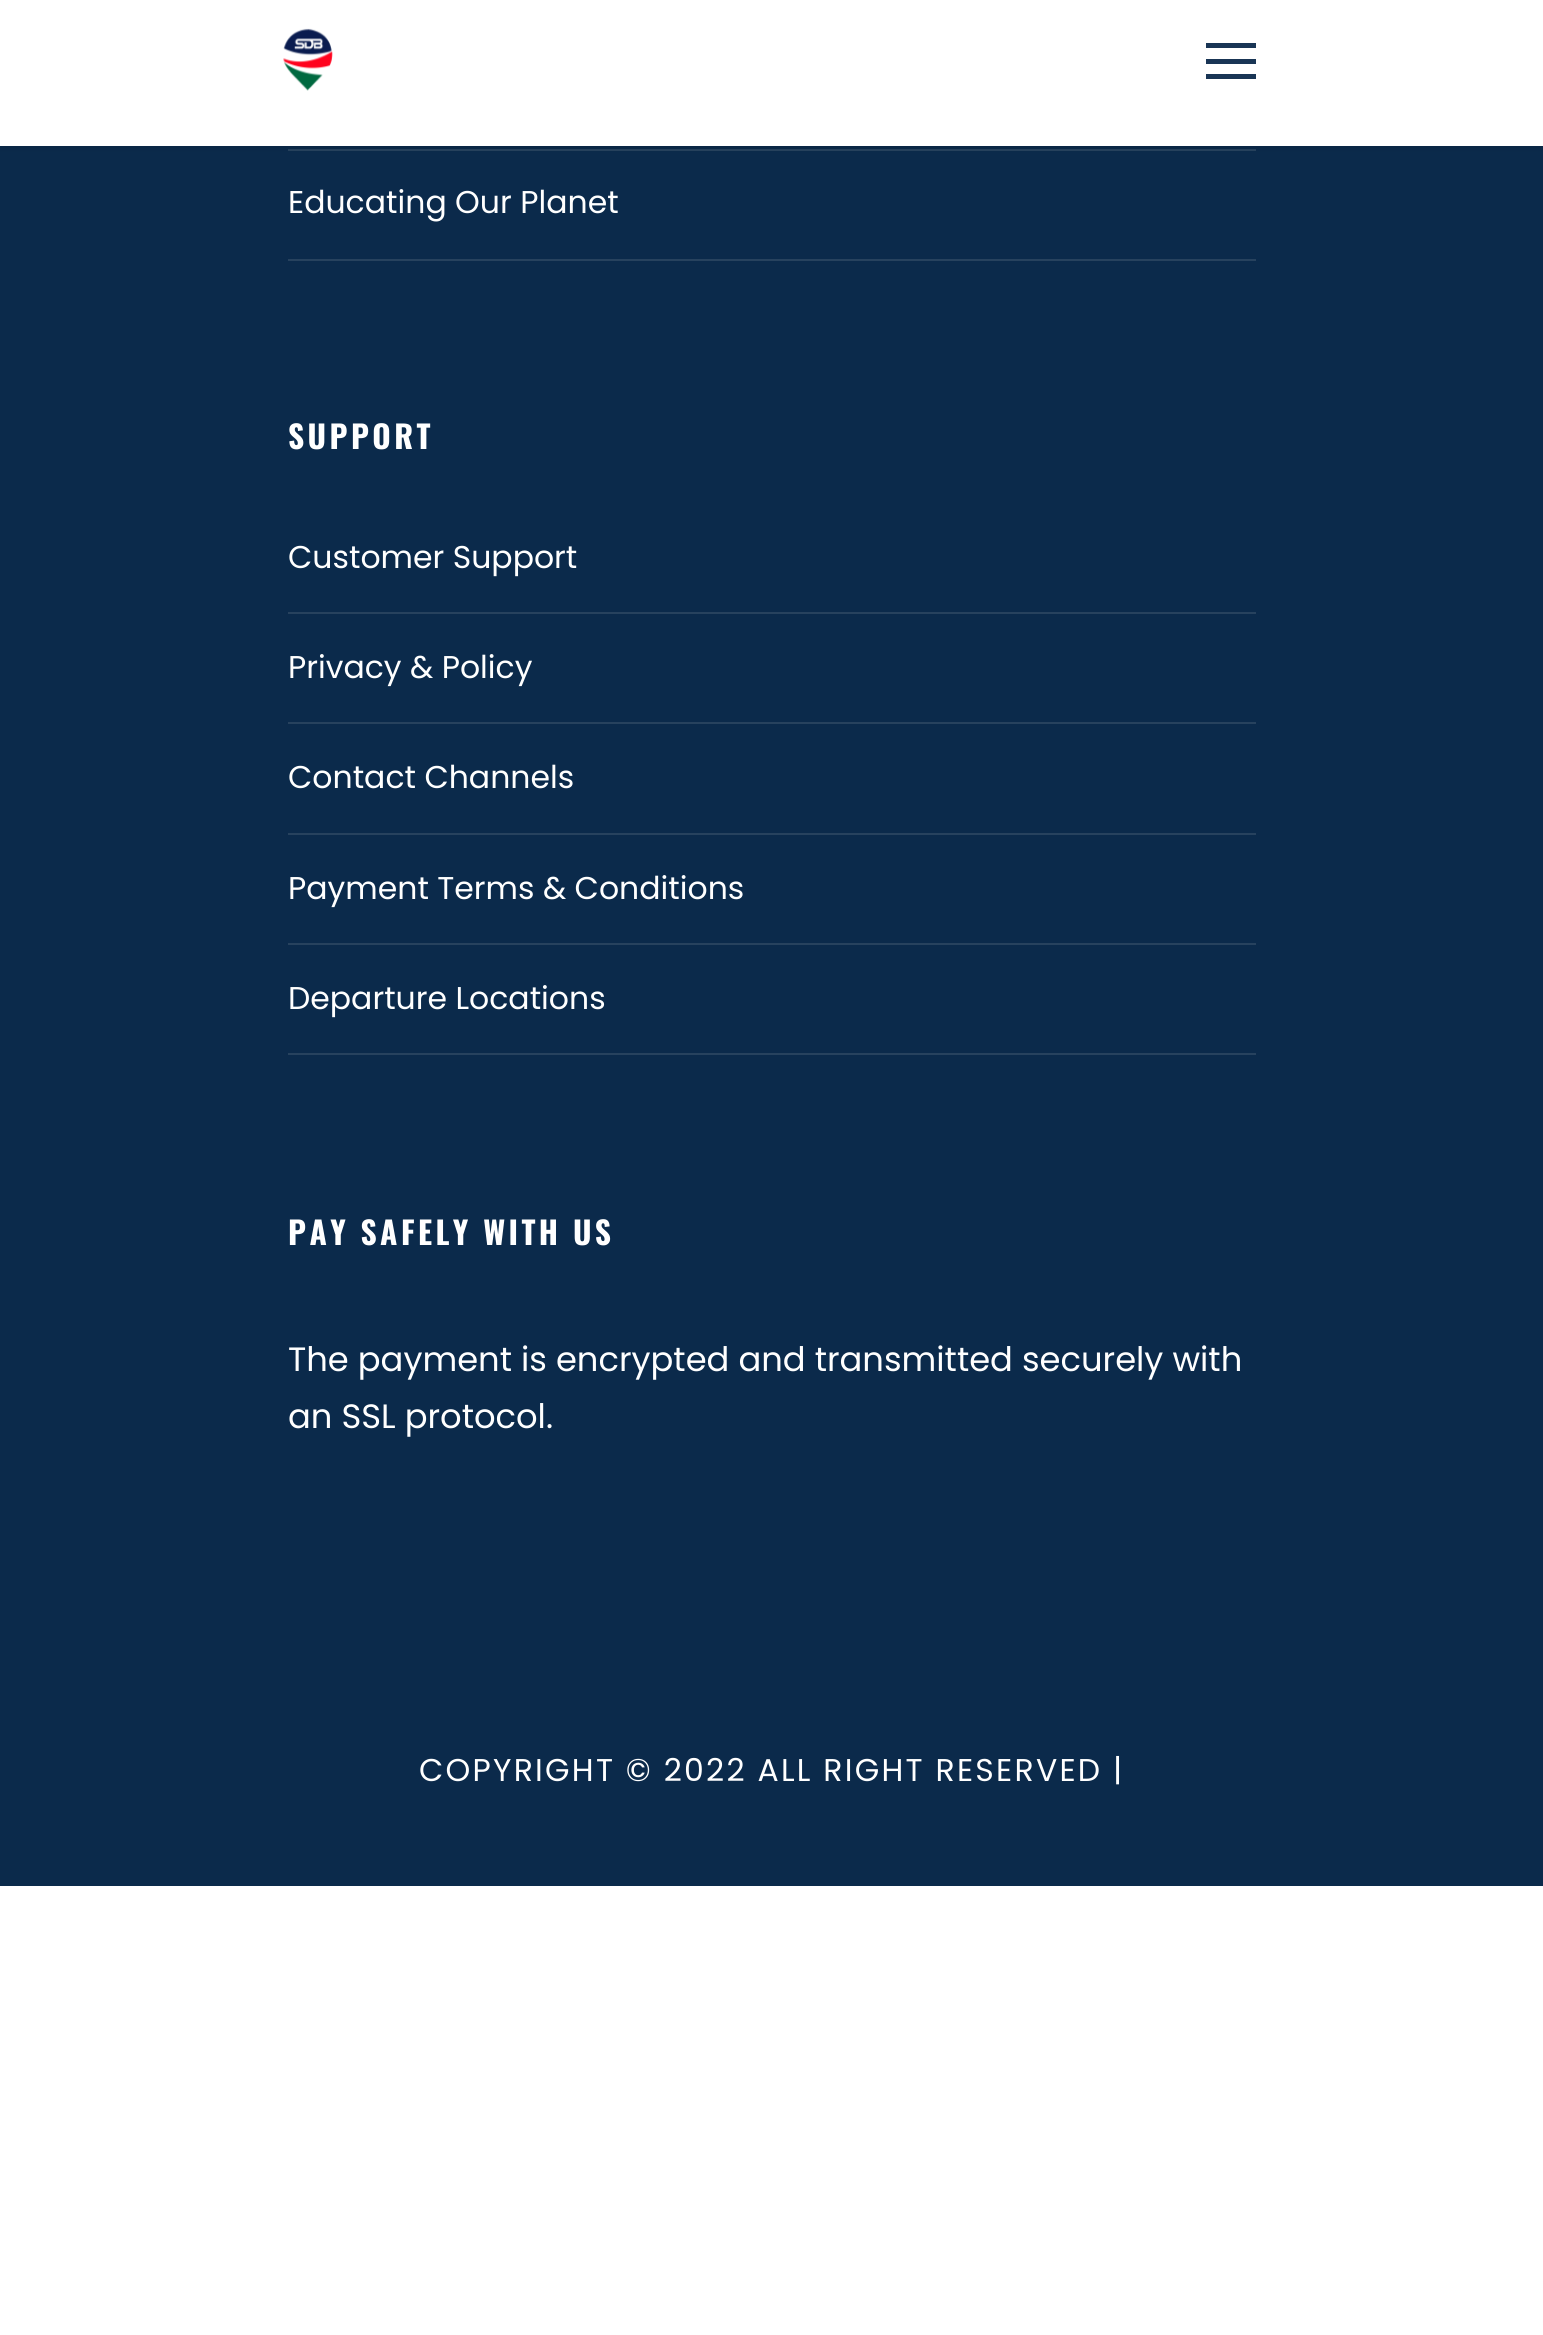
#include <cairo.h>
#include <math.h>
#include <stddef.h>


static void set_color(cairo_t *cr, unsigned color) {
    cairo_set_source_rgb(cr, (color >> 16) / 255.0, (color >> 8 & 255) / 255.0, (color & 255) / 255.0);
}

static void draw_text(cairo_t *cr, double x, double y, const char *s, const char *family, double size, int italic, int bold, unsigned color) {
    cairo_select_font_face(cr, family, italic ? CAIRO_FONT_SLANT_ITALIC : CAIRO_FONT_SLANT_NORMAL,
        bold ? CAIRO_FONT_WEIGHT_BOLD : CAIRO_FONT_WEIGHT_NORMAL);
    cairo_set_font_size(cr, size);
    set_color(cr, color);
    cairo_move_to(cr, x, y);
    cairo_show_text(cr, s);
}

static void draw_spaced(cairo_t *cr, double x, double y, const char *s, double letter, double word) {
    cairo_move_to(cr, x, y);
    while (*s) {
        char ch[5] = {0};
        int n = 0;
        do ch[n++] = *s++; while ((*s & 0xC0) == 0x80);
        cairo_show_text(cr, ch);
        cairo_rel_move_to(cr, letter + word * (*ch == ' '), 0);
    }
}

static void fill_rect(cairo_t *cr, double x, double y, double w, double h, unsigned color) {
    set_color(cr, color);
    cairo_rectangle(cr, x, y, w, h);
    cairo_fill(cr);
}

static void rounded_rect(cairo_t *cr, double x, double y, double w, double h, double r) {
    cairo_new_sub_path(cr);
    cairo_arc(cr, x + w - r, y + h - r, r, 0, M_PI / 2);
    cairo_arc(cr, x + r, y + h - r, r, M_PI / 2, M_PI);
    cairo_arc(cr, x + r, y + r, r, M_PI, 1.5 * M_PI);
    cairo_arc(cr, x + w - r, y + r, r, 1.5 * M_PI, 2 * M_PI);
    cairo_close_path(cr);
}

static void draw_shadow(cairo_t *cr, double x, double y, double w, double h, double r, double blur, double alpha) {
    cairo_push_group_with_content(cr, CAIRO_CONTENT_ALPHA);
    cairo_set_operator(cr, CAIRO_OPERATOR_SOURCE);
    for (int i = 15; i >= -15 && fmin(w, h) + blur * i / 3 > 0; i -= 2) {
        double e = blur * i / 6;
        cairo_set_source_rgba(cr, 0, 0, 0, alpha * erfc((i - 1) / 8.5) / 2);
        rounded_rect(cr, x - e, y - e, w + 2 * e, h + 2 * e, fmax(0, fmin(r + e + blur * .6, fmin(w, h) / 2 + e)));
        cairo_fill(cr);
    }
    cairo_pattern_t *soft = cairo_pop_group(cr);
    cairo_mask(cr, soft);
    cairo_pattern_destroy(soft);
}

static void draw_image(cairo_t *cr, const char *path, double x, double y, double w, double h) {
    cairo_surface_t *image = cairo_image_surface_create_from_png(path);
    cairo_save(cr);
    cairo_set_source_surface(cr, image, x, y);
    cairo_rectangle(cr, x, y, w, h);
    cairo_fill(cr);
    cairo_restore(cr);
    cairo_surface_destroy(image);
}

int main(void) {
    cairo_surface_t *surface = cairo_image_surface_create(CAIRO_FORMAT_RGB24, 1543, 2335);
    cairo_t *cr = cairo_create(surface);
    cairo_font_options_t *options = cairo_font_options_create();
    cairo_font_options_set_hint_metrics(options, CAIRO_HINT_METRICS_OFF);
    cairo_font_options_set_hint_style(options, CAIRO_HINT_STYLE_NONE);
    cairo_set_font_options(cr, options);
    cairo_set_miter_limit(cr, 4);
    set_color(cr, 0xFFFFFF);
    cairo_paint(cr);
    fill_rect(cr, 0, 146, 1543, 1740, 0x0B2A4B);
    fill_rect(cr, 288, 149, 968, 2, 0x27425E);
    set_color(cr, 0x000000);
    draw_shadow(cr, 0, 2, 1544, 147, 0, 2, 0.1);
    fill_rect(cr, 0, 0, 1543, 146, 0xFFFFFF);
    draw_image(cr, "assets/img1.png", 283, 28, 50, 63);
    fill_rect(cr, 1206, 43, 50, 5, 0x193555);
    fill_rect(cr, 1206, 59, 50, 5, 0x193555);
    fill_rect(cr, 1206, 74, 50, 5, 0x193555);
    fill_rect(cr, 288, 259, 968, 2, 0x27425E);
    draw_text(cr, 288, 213, "Educating Our Planet", "Poppins", 31.5, 0, 0, 0xFFFFFF);
    cairo_select_font_face(cr, "Oswald", CAIRO_FONT_SLANT_NORMAL, CAIRO_FONT_WEIGHT_BOLD);
    draw_spaced(cr, 288, 449, "SUPPORT", 3.4, 0);
    fill_rect(cr, 288, 612, 968, 2, 0x27425E);
    draw_text(cr, 288, 568, "Customer Support", "Poppins", 31.5, 0, 0, 0xFFFFFF);
    fill_rect(cr, 288, 722, 968, 2, 0x27425E);
    draw_text(cr, 288, 678, "Privacy & Policy", "Poppins", 31.5, 0, 0, 0xFFFFFF);
    fill_rect(cr, 288, 833, 968, 2, 0x27425E);
    draw_text(cr, 288, 788, "Contact Channels", "Poppins", 31.5, 0, 0, 0xFFFFFF);
    fill_rect(cr, 288, 943, 968, 2, 0x27425E);
    draw_text(cr, 288, 899, "Payment Terms & Conditions", "Poppins", 31.5, 0, 0, 0xFFFFFF);
    fill_rect(cr, 288, 1053, 968, 2, 0x27425E);
    draw_text(cr, 288, 1009, "Departure Locations", "Poppins", 31.5, 0, 0, 0xFFFFFF);
    cairo_select_font_face(cr, "Oswald", CAIRO_FONT_SLANT_NORMAL, CAIRO_FONT_WEIGHT_BOLD);
    draw_spaced(cr, 288, 1245, "PAY SAFELY WITH US", 3.4, 0);
    draw_text(cr, 288, 1371, "The payment is encrypted and transmitted securely with", "Poppins", 33.75, 0, 0, 0xFFFFFF);
    draw_text(cr, 288, 1428, "an SSL protocol.", "Poppins", 33.75, 0, 0, 0xFFFFFF);
    cairo_set_font_size(cr, 31.5);
    draw_spaced(cr, 419, 1781, "COPYRIGHT © 2022 ALL RIGHT RESERVED |", 2.25, 0);
    cairo_surface_write_to_png(surface, "output.png");
    cairo_font_options_destroy(options);
    cairo_destroy(cr);
    cairo_surface_destroy(surface);
    return 0;
}
